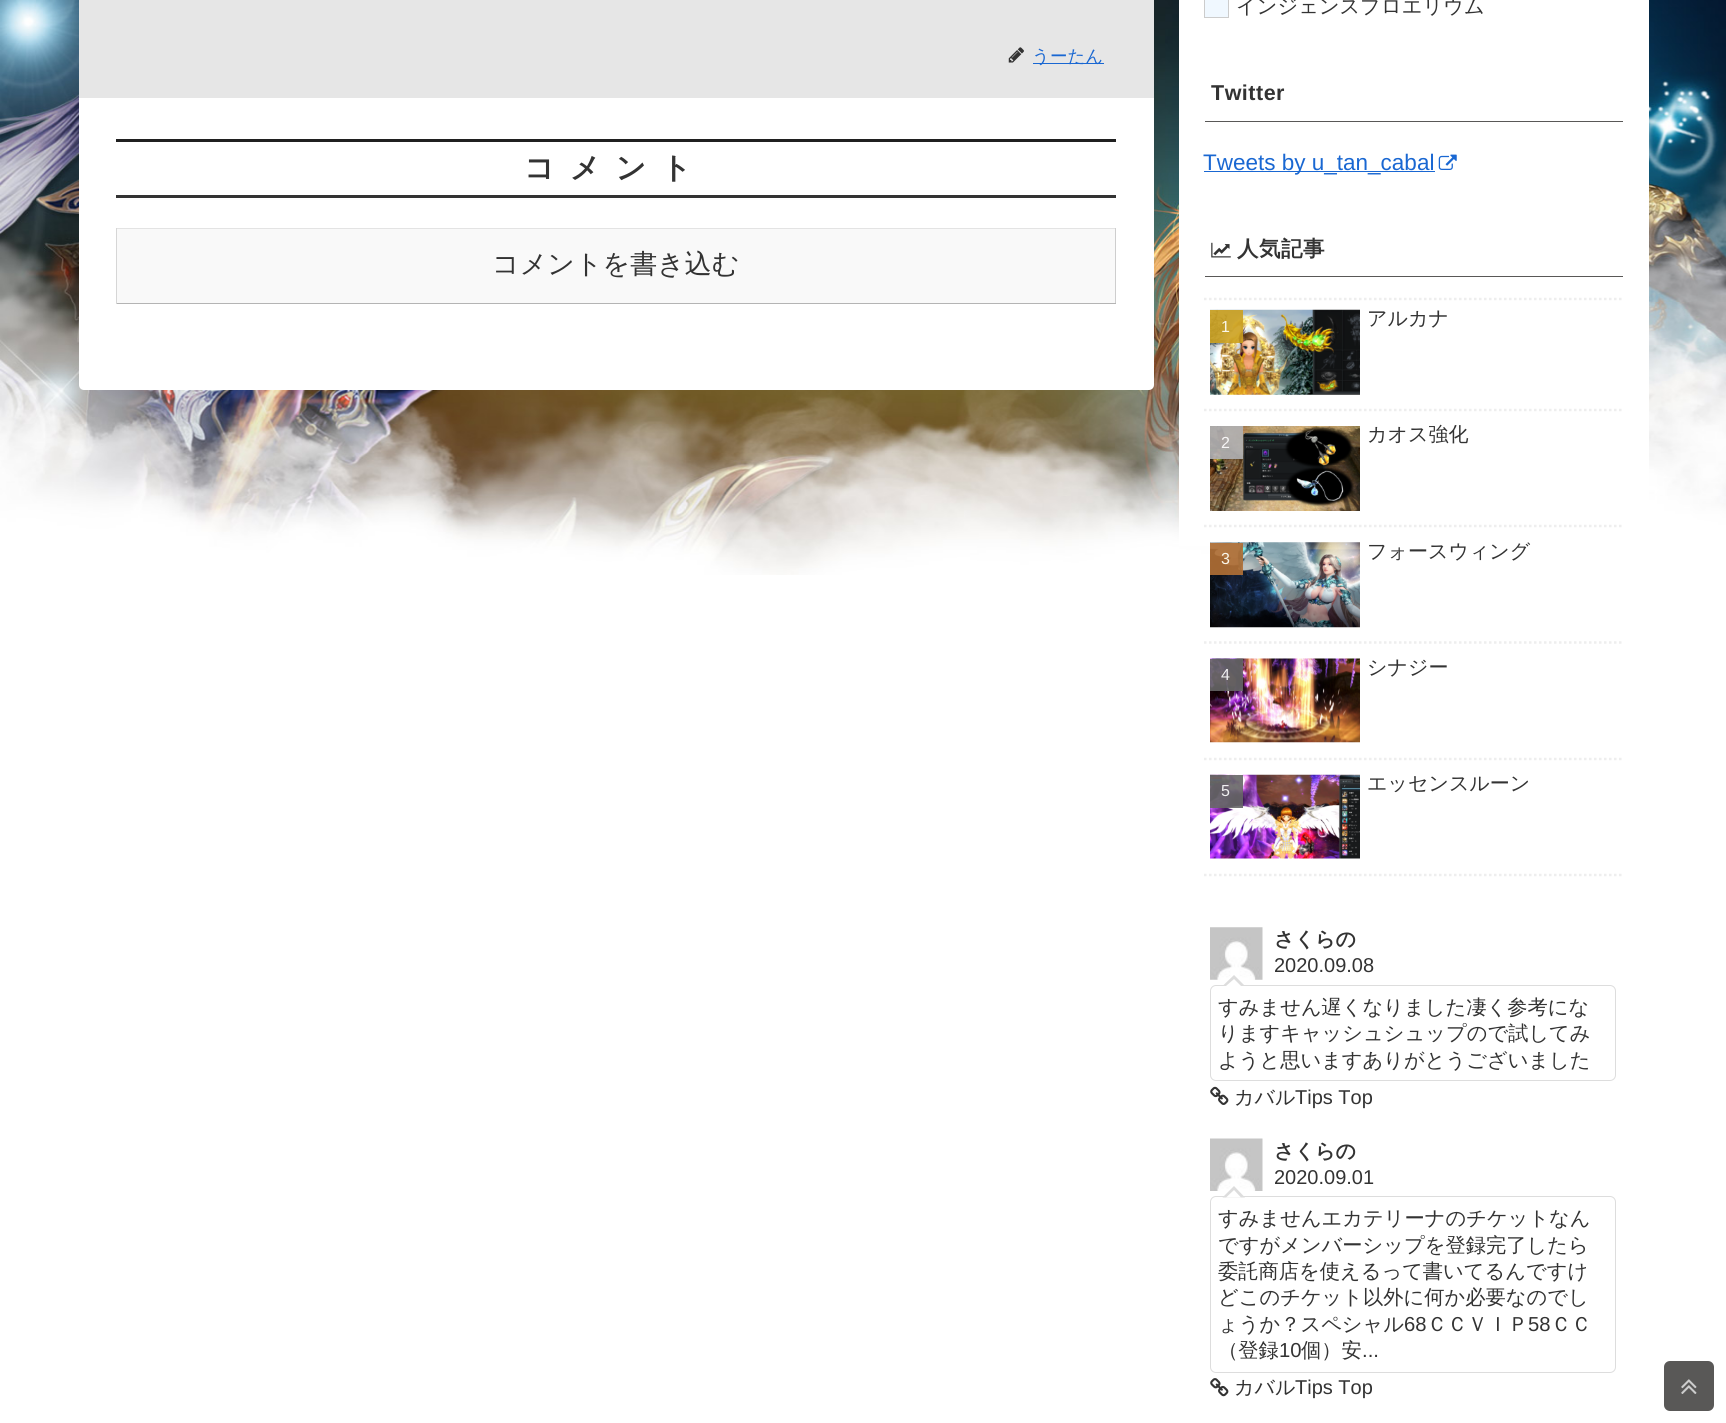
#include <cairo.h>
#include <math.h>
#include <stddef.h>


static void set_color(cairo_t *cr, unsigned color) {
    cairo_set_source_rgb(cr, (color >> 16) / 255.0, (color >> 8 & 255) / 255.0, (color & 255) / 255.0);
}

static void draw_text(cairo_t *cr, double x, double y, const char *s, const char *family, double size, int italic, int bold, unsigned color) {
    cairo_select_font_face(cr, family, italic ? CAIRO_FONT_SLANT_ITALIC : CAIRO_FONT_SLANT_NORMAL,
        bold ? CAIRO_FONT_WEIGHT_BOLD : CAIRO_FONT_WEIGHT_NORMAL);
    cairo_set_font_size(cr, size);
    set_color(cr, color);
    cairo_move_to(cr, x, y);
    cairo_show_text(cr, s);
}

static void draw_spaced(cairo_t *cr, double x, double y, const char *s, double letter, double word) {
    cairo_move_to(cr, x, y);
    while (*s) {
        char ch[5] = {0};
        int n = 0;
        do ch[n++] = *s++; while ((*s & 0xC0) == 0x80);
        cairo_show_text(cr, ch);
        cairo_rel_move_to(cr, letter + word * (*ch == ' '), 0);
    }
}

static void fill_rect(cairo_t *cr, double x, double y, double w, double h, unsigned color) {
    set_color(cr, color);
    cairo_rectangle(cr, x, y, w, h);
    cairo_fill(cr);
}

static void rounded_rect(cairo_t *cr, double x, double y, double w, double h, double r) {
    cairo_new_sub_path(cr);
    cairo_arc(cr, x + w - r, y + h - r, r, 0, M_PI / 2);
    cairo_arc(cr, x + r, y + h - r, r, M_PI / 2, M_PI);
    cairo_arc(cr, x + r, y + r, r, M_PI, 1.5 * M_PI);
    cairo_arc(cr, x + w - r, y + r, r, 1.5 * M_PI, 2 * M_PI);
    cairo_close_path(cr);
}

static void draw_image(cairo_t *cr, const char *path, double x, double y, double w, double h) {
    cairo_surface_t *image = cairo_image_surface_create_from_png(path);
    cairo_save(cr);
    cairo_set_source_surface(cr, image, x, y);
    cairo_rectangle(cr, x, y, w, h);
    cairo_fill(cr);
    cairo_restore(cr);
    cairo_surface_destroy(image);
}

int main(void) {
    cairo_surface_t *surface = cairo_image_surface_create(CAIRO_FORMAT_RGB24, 1726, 1423);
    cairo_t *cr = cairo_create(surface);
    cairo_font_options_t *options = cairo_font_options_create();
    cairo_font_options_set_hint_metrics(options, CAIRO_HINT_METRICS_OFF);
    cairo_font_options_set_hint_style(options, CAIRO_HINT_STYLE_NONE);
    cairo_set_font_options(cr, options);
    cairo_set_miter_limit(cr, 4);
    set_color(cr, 0xFFFFFF);
    cairo_paint(cr);
    draw_image(cr, "assets/img1.png", 0, 0, 1726, 575);
    set_color(cr, 0xFFFFFF);
    rounded_rect(cr, 79, -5, 1075, 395, 5);
    cairo_fill(cr);
    fill_rect(cr, 79, 0, 1075, 98, 0xE6E6E6);
    draw_image(cr, "assets/img2.png", 1008, 47, 16, 16);
    fill_rect(cr, 1033, 63, 71, 1, 0x1967D2);
    draw_text(cr, 1032, 62, "うーたん", "WenQuanYi Zen Hei Medium", 17.5, 0, 0, 0x1967D2);
    fill_rect(cr, 116, 139, 1000, 3, 0x202020);
    fill_rect(cr, 116, 195, 1000, 3, 0x333333);
    cairo_select_font_face(cr, "WenQuanYi Zen Hei", CAIRO_FONT_SLANT_NORMAL, CAIRO_FONT_WEIGHT_BOLD);
    cairo_set_font_size(cr, 30);
    draw_spaced(cr, 524, 178, "コメント", 15, 0);
    fill_rect(cr, 117, 229, 998, 74, 0xF9F9F9);
    fill_rect(cr, 116, 228, 1000, 1, 0xE3E3E3);
    fill_rect(cr, 1115, 228, 1, 76, 0xCECECE);
    fill_rect(cr, 116, 303, 1000, 1, 0xB4B4B4);
    fill_rect(cr, 116, 228, 1, 76, 0xD6D6D6);
    draw_text(cr, 492, 273, "コメントを書き込む", "WenQuanYi Zen Hei Medium", 27, 0, 0, 0x333333);
    fill_rect(cr, 1179, 0, 470, 546, 0xFFFFFF);
    set_color(cr, 0xF0F8FF);
    cairo_rectangle(cr, 1204.5, -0.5, 24, 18);
    cairo_fill_preserve(cr);
    set_color(cr, 0xCCCCCC);
    cairo_set_line_width(cr, 1);
    cairo_stroke(cr);
    draw_text(cr, 1236, 13, "インジェンスプロエリウム", "WenQuanYi Zen Hei Medium", 20.25, 0, 0, 0x333333);
    fill_rect(cr, 1205, 121, 418, 1, 0x595857);
    cairo_select_font_face(cr, "Liberation Sans", CAIRO_FONT_SLANT_NORMAL, CAIRO_FONT_WEIGHT_BOLD);
    cairo_set_font_size(cr, 21.5);
    set_color(cr, 0x333333);
    draw_spaced(cr, 1211, 100, "Twitter", 0.5, 0);
    fill_rect(cr, 1204, 171, 231, 1, 0x1967D2);
    draw_text(cr, 1203, 170, "Tweets by u_tan_cabal", "Liberation Sans", 22.5, 0, 0, 0x1967D2);
    draw_image(cr, "assets/img3.png", 1438, 154, 19, 16);
    fill_rect(cr, 1205, 276, 418, 1, 0x595857);
    draw_image(cr, "assets/img4.png", 1211, 242, 20, 16);
    cairo_select_font_face(cr, "WenQuanYi Zen Hei", CAIRO_FONT_SLANT_NORMAL, CAIRO_FONT_WEIGHT_BOLD);
    cairo_set_font_size(cr, 21.5);
    set_color(cr, 0x333333);
    draw_spaced(cr, 1237, 256, "人気記事", 0.5, 0);
    cairo_new_path(cr);
    cairo_move_to(cr, 1204, 299);
    cairo_line_to(cr, 1624, 299);
    set_color(cr, 0xEEEEEE);
    cairo_set_line_width(cr, 2.5);
    cairo_set_dash(cr, (double[]){2.5, 2.5}, 2, 0);
    cairo_stroke(cr);
    cairo_new_path(cr);
    cairo_move_to(cr, 1204, 410);
    cairo_line_to(cr, 1624, 410);
    cairo_stroke(cr);
    draw_image(cr, "assets/img5.png", 1210, 309, 150, 86);
    cairo_set_source_rgba(cr, 0.8, 0.631, 0.122, 0.9);
    cairo_rectangle(cr, 1210, 310, 33, 33);
    cairo_fill(cr);
    draw_text(cr, 1221, 332, "1", "Liberation Sans", 16, 0, 0, 0xF9F6EA);
    draw_text(cr, 1367, 325, "アルカナ", "WenQuanYi Zen Hei Medium", 20, 0, 0, 0x333333);
    cairo_new_path(cr);
    cairo_move_to(cr, 1204, 526);
    cairo_line_to(cr, 1624, 526);
    set_color(cr, 0xEEEEEE);
    cairo_stroke(cr);
    draw_image(cr, "assets/img6.png", 1210, 426, 150, 85);
    cairo_set_source_rgba(cr, 0.694, 0.694, 0.702, 0.9);
    cairo_rectangle(cr, 1210, 426, 33, 33);
    cairo_fill(cr);
    draw_text(cr, 1221, 448, "2", "Liberation Sans", 16, 0, 0, 0xF7F6F6);
    draw_text(cr, 1367, 441, "カオス強化", "WenQuanYi Zen Hei Medium", 20, 0, 0, 0x333333);
    cairo_new_path(cr);
    cairo_move_to(cr, 1204, 642.5);
    cairo_line_to(cr, 1624, 642.5);
    set_color(cr, 0xEEEEEE);
    cairo_stroke(cr);
    draw_image(cr, "assets/img7.png", 1210, 542, 150, 86);
    cairo_set_source_rgba(cr, 0.702, 0.439, 0.212, 0.9);
    cairo_rectangle(cr, 1210, 543, 33, 32);
    cairo_fill(cr);
    draw_text(cr, 1221, 564, "3", "Liberation Sans", 16, 0, 0, 0xF9F6EA);
    draw_text(cr, 1367, 558, "フォースウィング", "WenQuanYi Zen Hei Medium", 20, 0, 0, 0x333333);
    cairo_new_path(cr);
    cairo_move_to(cr, 1204, 759);
    cairo_line_to(cr, 1624, 759);
    set_color(cr, 0xEEEEEE);
    cairo_stroke(cr);
    draw_image(cr, "assets/img8.png", 1210, 658, 150, 85);
    cairo_set_source_rgba(cr, 0.4, 0.4, 0.4, 0.9);
    cairo_rectangle(cr, 1210, 659, 33, 32);
    cairo_fill(cr);
    draw_text(cr, 1221, 680, "4", "Liberation Sans", 16, 0, 0, 0xF0EFF0);
    draw_text(cr, 1367, 674, "シナジー", "WenQuanYi Zen Hei Medium", 20, 0, 0, 0x333333);
    cairo_new_path(cr);
    cairo_move_to(cr, 1204, 875);
    cairo_line_to(cr, 1624, 875);
    set_color(cr, 0xEEEEEE);
    cairo_stroke(cr);
    draw_image(cr, "assets/img9.png", 1210, 774, 150, 85);
    cairo_set_source_rgba(cr, 0.4, 0.4, 0.4, 0.9);
    cairo_rectangle(cr, 1210, 775, 33, 33);
    cairo_fill(cr);
    draw_text(cr, 1221, 796, "5", "Liberation Sans", 16, 0, 0, 0xF0EFF0);
    draw_text(cr, 1367, 790, "エッセンスルーン", "WenQuanYi Zen Hei Medium", 20, 0, 0, 0x333333);
    draw_image(cr, "assets/img10.png", 1210, 927, 53, 53);
    draw_text(cr, 1274, 946, "さくらの", "WenQuanYi Zen Hei", 20, 0, 1, 0x333333);
    draw_text(cr, 1274, 972, "2020.09.08", "Liberation Sans", 20, 0, 0, 0x333333);
    rounded_rect(cr, 1210.5, 985.5, 405, 95, 5.5);
    set_color(cr, 0xDDDDDD);
    cairo_set_line_width(cr, 1);
    cairo_set_dash(cr, NULL, 0, 0);
    cairo_stroke(cr);
    cairo_new_path(cr);
    cairo_move_to(cr, 1245, 986);
    cairo_line_to(cr, 1222.5, 986);
    cairo_line_to(cr, 1234, 975);
    cairo_close_path(cr);
    cairo_fill(cr);
    set_color(cr, 0xFFFFFF);
    cairo_new_path(cr);
    cairo_move_to(cr, 1241, 986);
    cairo_line_to(cr, 1226, 986);
    cairo_line_to(cr, 1234, 979);
    cairo_close_path(cr);
    cairo_fill(cr);
    draw_text(cr, 1218, 1014, "すみません遅くなりました凄く参考にな", "WenQuanYi Zen Hei Medium", 20.25, 0, 0, 0x333333);
    draw_text(cr, 1218, 1040, "りますキャッシュシュップので試してみ", "WenQuanYi Zen Hei Medium", 20.25, 0, 0, 0x333333);
    draw_text(cr, 1218, 1067, "ようと思いますありがとうございました", "WenQuanYi Zen Hei Medium", 20.25, 0, 0, 0x333333);
    draw_image(cr, "assets/img11.png", 1210, 1086, 19, 19);
    draw_text(cr, 1234, 1104, "カバル", "WenQuanYi Zen Hei Medium", 20, 0, 0, 0x333333);
    draw_text(cr, 1295, 1104, "Tips Top", "Liberation Sans", 20, 0, 0, 0x333333);
    draw_image(cr, "assets/img12.png", 1210, 1138, 53, 53);
    draw_text(cr, 1274, 1158, "さくらの", "WenQuanYi Zen Hei", 20, 0, 1, 0x333333);
    draw_text(cr, 1274, 1184, "2020.09.01", "Liberation Sans", 20, 0, 0, 0x333333);
    rounded_rect(cr, 1210.5, 1196.5, 405, 176, 5.5);
    set_color(cr, 0xDDDDDD);
    cairo_stroke(cr);
    cairo_new_path(cr);
    cairo_move_to(cr, 1245, 1197.5);
    cairo_line_to(cr, 1222.5, 1197.5);
    cairo_line_to(cr, 1234, 1186);
    cairo_close_path(cr);
    cairo_fill(cr);
    set_color(cr, 0xFFFFFF);
    cairo_new_path(cr);
    cairo_move_to(cr, 1241, 1197.5);
    cairo_line_to(cr, 1226, 1197.5);
    cairo_line_to(cr, 1234, 1190);
    cairo_close_path(cr);
    cairo_fill(cr);
    draw_text(cr, 1218, 1225, "すみませんエカテリーナのチケットなん", "WenQuanYi Zen Hei Medium", 20.25, 0, 0, 0x333333);
    draw_text(cr, 1218, 1252, "ですがメンバーシップを登録完了したら", "WenQuanYi Zen Hei Medium", 20.25, 0, 0, 0x333333);
    draw_text(cr, 1218, 1278, "委託商店を使えるって書いてるんですけ", "WenQuanYi Zen Hei Medium", 20.25, 0, 0, 0x333333);
    draw_text(cr, 1218, 1304, "どこのチケット以外に何か必要なのでし", "WenQuanYi Zen Hei Medium", 20.25, 0, 0, 0x333333);
    draw_text(cr, 1218, 1331, "ょうか？スペシャル", "WenQuanYi Zen Hei Medium", 20.25, 0, 0, 0x333333);
    draw_text(cr, 1404, 1331, "68", "Liberation Sans", 20.25, 0, 0, 0x333333);
    draw_text(cr, 1427, 1331, "ＣＣＶＩＰ", "WenQuanYi Zen Hei Medium", 20.25, 0, 0, 0x333333);
    draw_text(cr, 1528, 1331, "58", "Liberation Sans", 20.25, 0, 0, 0x333333);
    draw_text(cr, 1551, 1331, "ＣＣ", "WenQuanYi Zen Hei Medium", 20.25, 0, 0, 0x333333);
    draw_text(cr, 1218, 1357, "（登録", "WenQuanYi Zen Hei Medium", 20.25, 0, 0, 0x333333);
    draw_text(cr, 1279, 1357, "10", "Liberation Sans", 20.25, 0, 0, 0x333333);
    draw_text(cr, 1301, 1357, "個）安", "WenQuanYi Zen Hei Medium", 20.25, 0, 0, 0x333333);
    draw_text(cr, 1362, 1357, "...", "Liberation Sans", 20.25, 0, 0, 0x333333);
    draw_image(cr, "assets/img13.png", 1210, 1378, 19, 19);
    draw_text(cr, 1234, 1394, "カバル", "WenQuanYi Zen Hei Medium", 20, 0, 0, 0x333333);
    draw_text(cr, 1295, 1394, "Tips Top", "Liberation Sans", 20, 0, 0, 0x333333);
    set_color(cr, 0x595857);
    rounded_rect(cr, 1664, 1361, 50, 50, 6);
    cairo_fill(cr);
    draw_image(cr, "assets/img14.png", 1681, 1379, 16, 15);
    cairo_surface_write_to_png(surface, "output.png");
    cairo_font_options_destroy(options);
    cairo_destroy(cr);
    cairo_surface_destroy(surface);
    return 0;
}
